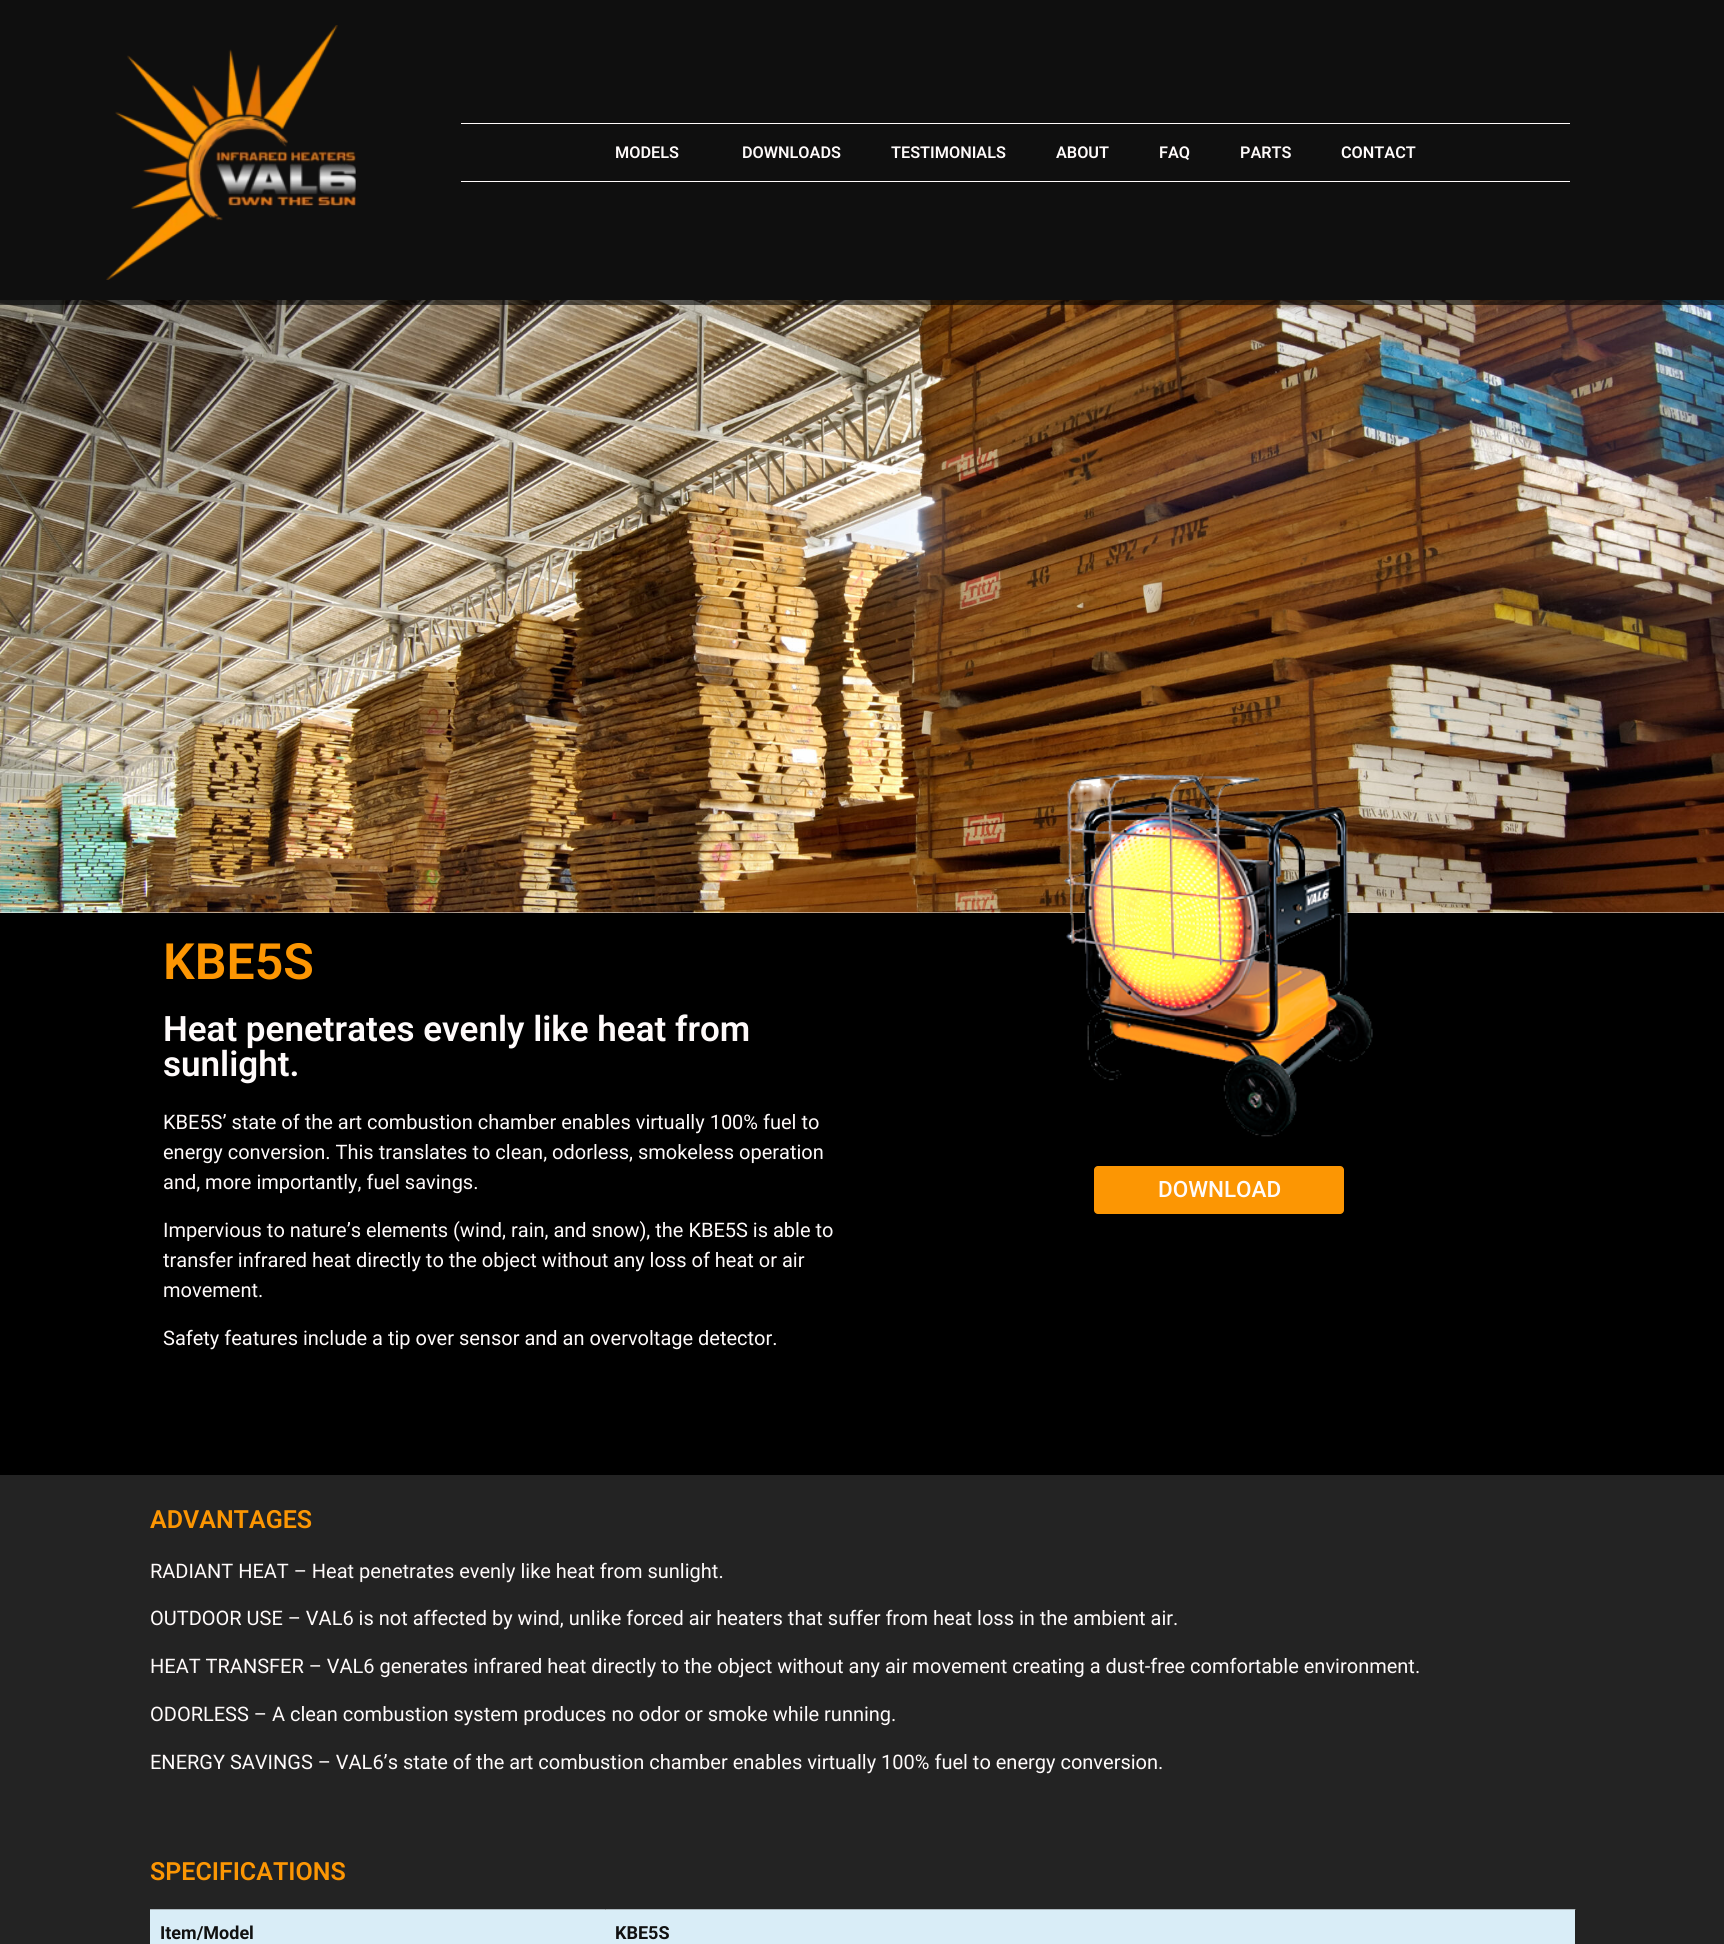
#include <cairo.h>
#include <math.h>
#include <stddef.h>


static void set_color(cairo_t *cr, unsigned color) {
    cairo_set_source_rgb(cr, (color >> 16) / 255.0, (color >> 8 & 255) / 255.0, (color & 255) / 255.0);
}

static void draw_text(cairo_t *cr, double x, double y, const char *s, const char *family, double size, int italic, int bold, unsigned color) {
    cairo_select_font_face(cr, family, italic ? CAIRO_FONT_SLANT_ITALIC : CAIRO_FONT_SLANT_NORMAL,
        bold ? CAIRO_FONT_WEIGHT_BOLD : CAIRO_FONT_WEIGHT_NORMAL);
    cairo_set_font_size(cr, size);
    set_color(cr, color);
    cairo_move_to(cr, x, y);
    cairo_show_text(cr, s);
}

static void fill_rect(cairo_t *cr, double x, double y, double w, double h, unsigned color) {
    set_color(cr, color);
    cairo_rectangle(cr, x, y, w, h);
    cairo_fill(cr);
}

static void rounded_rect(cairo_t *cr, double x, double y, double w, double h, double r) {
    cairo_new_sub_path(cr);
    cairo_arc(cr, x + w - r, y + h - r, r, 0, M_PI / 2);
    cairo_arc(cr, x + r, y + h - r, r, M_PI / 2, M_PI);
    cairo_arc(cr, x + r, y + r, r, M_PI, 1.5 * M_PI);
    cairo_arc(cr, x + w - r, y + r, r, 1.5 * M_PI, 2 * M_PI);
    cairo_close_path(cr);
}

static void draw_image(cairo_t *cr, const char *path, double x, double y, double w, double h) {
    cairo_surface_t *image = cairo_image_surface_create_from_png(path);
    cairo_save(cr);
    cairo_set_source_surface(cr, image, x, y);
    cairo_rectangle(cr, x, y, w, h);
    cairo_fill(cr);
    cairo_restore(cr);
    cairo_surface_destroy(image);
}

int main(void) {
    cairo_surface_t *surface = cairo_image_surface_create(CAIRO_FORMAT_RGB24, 1724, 1944);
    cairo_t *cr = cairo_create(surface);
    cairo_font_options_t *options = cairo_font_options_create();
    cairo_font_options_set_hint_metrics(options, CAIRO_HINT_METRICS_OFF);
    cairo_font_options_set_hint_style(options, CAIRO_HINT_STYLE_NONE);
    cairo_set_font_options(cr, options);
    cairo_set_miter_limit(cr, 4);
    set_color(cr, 0xFFFFFF);
    cairo_paint(cr);
    fill_rect(cr, 0, 0, 1724, 300, 0x232323);
    draw_image(cr, "assets/img2.png", 0, 300, 1724, 613);
    cairo_set_source_rgba(cr, 0, 0, 0, 0.58);
    cairo_rectangle(cr, 0, 0, 1724, 305);
    cairo_fill(cr);
    draw_image(cr, "assets/img1.png", 106, 25, 250, 255);
    fill_rect(cr, 461, 123, 1109, 1, 0xFFFBFB);
    fill_rect(cr, 461, 181, 1109, 1, 0xFFFBFB);
    draw_text(cr, 615, 158, "MODELS", "Roboto SemiBold", 16.25, 0, 0, 0xFFFBFB);
    draw_text(cr, 742, 158, "DOWNLOADS", "Roboto SemiBold", 16.25, 0, 0, 0xFFFBFB);
    draw_text(cr, 891, 158, "TESTIMONIALS", "Roboto SemiBold", 16.25, 0, 0, 0xFFFBFB);
    draw_text(cr, 1056, 158, "ABOUT", "Roboto SemiBold", 16.25, 0, 0, 0xFFFBFB);
    draw_text(cr, 1159, 158, "FAQ", "Roboto SemiBold", 16.25, 0, 0, 0xFFFBFB);
    draw_text(cr, 1240, 158, "PARTS", "Roboto SemiBold", 16.25, 0, 0, 0xFFFBFB);
    draw_text(cr, 1341, 158, "CONTACT", "Roboto SemiBold", 16.25, 0, 0, 0xFFFBFB);
    fill_rect(cr, 0, 913, 1724, 562, 0x000000);
    draw_text(cr, 163, 979, "KBE5S", "Roboto SemiBold", 50, 0, 0, 0xFC9603);
    draw_text(cr, 163, 1041, "Heat penetrates evenly like heat from", "Roboto SemiBold", 35, 0, 0, 0xFFFBFB);
    draw_text(cr, 163, 1076, "sunlight.", "Roboto SemiBold", 35, 0, 0, 0xFFFBFB);
    draw_text(cr, 163, 1129, "KBE5S’ state of the art combustion chamber enables virtually 100% fuel to", "Roboto", 20, 0, 0, 0xFFFBFB);
    draw_text(cr, 163, 1159, "energy conversion. This translates to clean, odorless, smokeless operation", "Roboto", 20, 0, 0, 0xFFFBFB);
    draw_text(cr, 163, 1189, "and, more importantly, fuel savings.", "Roboto", 20, 0, 0, 0xFFFBFB);
    draw_text(cr, 163, 1237, "Impervious to nature’s elements (wind, rain, and snow), the KBE5S is able to", "Roboto", 20, 0, 0, 0xFFFBFB);
    draw_text(cr, 163, 1267, "transfer infrared heat directly to the object without any loss of heat or air", "Roboto", 20, 0, 0, 0xFFFBFB);
    draw_text(cr, 163, 1297, "movement.", "Roboto", 20, 0, 0, 0xFFFBFB);
    draw_text(cr, 163, 1345, "Safety features include a tip over sensor and an overvoltage detector.", "Roboto", 20, 0, 0, 0xFFFBFB);
    draw_image(cr, "assets/img3.png", 1063, 773, 310, 364);
    set_color(cr, 0xFC9603);
    rounded_rect(cr, 1094, 1166, 250, 48, 4);
    cairo_fill(cr);
    draw_text(cr, 1158, 1197, "DOWNLOAD", "Roboto Medium", 22.5, 0, 0, 0xFFFBFB);
    fill_rect(cr, 0, 1475, 1724, 469, 0x232323);
    draw_text(cr, 150, 1528, "ADVANTAGES", "Roboto SemiBold", 25, 0, 0, 0xFC9603);
    draw_text(cr, 150, 1578, "RADIANT HEAT – Heat penetrates evenly like heat from sunlight.", "Roboto", 20, 0, 0, 0xFFFBFB);
    draw_text(cr, 150, 1625, "OUTDOOR USE – VAL6 is not affected by wind, unlike forced air heaters that suffer from heat loss in the ambient air.", "Roboto", 20, 0, 0, 0xFFFBFB);
    draw_text(cr, 150, 1673, "HEAT TRANSFER – VAL6 generates infrared heat directly to the object without any air movement creating a dust-free comfortable environment.", "Roboto", 20, 0, 0, 0xFFFBFB);
    draw_text(cr, 150, 1721, "ODORLESS – A clean combustion system produces no odor or smoke while running.", "Roboto", 20, 0, 0, 0xFFFBFB);
    draw_text(cr, 150, 1769, "ENERGY SAVINGS – VAL6’s state of the art combustion chamber enables virtually 100% fuel to energy conversion.", "Roboto", 20, 0, 0, 0xFFFBFB);
    fill_rect(cr, 1575, 1909, 1, 1, 0x525252);
    draw_text(cr, 150, 1880, "SPECIFICATIONS", "Roboto SemiBold", 25, 0, 0, 0xFC9603);
    fill_rect(cr, 150, 1910, 1425, 34, 0xD9EDF7);
    fill_rect(cr, 150, 1909, 1425, 1, 0xADB7BC);
    draw_text(cr, 160, 1939, "Item/Model", "Roboto", 18, 0, 1, 0x111111);
    fill_rect(cr, 605, 1909, 1, 1, 0x979C9E);
    draw_text(cr, 615, 1939, "KBE5S", "Roboto", 18, 0, 1, 0x111111);
    cairo_surface_write_to_png(surface, "output.png");
    cairo_font_options_destroy(options);
    cairo_destroy(cr);
    cairo_surface_destroy(surface);
    return 0;
}
